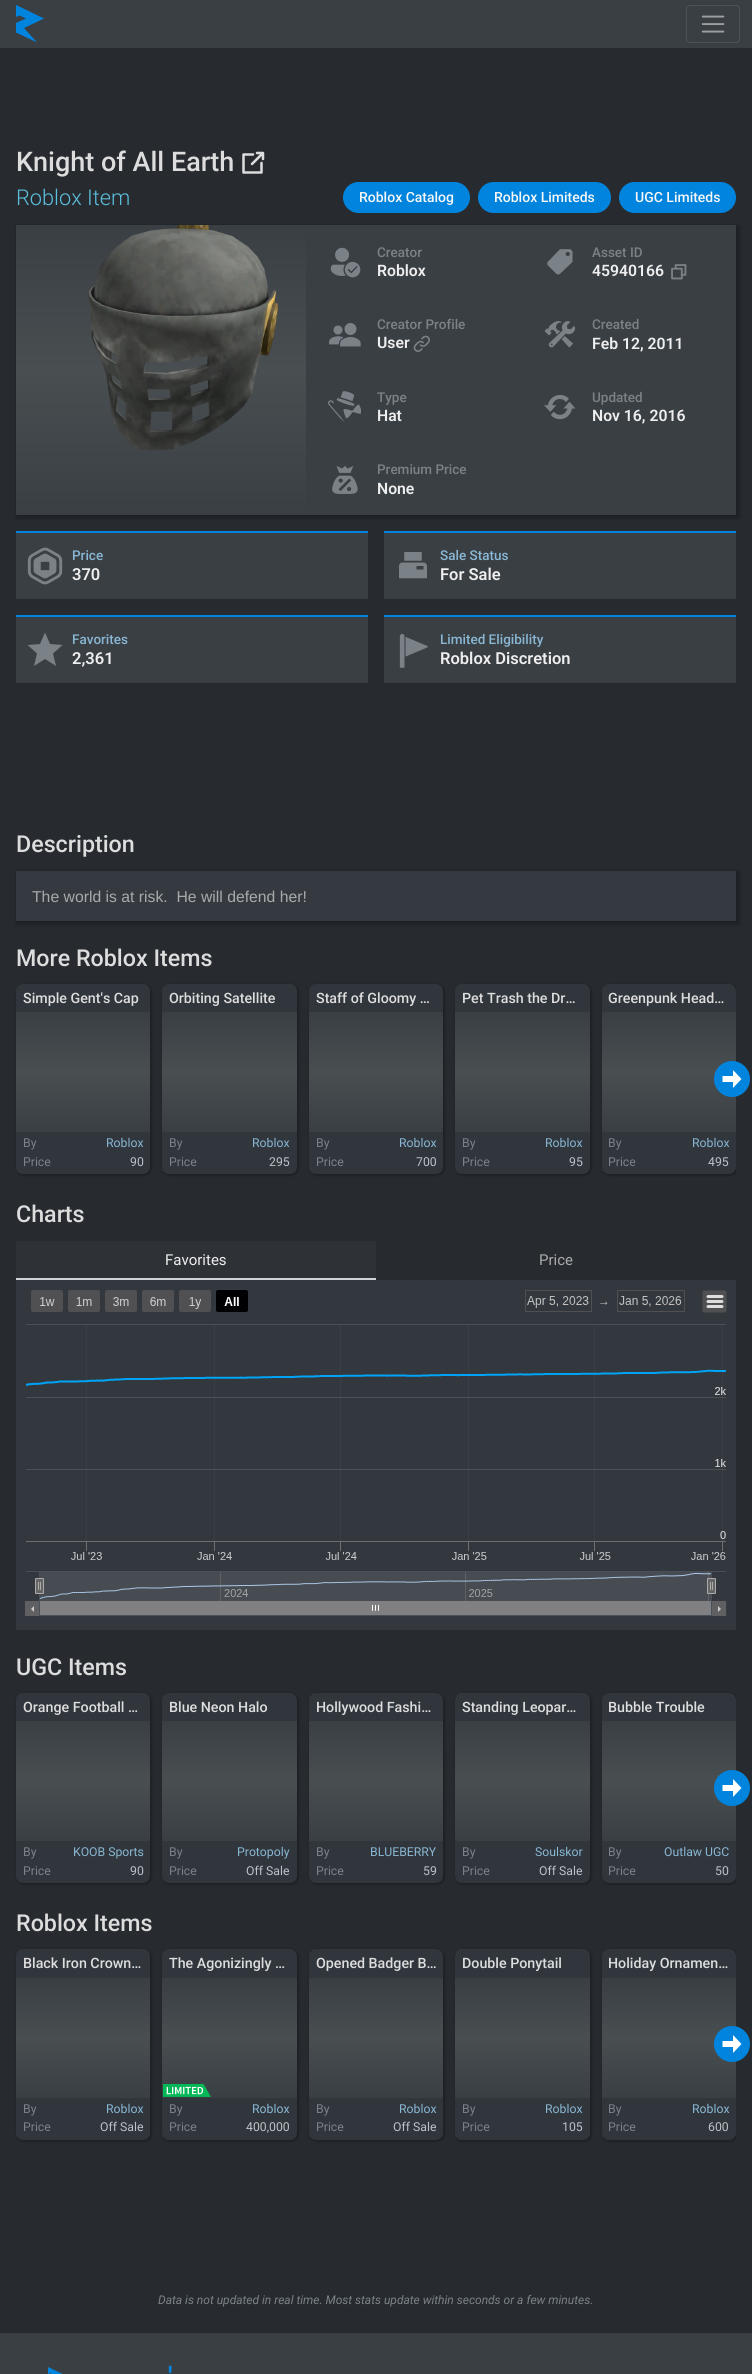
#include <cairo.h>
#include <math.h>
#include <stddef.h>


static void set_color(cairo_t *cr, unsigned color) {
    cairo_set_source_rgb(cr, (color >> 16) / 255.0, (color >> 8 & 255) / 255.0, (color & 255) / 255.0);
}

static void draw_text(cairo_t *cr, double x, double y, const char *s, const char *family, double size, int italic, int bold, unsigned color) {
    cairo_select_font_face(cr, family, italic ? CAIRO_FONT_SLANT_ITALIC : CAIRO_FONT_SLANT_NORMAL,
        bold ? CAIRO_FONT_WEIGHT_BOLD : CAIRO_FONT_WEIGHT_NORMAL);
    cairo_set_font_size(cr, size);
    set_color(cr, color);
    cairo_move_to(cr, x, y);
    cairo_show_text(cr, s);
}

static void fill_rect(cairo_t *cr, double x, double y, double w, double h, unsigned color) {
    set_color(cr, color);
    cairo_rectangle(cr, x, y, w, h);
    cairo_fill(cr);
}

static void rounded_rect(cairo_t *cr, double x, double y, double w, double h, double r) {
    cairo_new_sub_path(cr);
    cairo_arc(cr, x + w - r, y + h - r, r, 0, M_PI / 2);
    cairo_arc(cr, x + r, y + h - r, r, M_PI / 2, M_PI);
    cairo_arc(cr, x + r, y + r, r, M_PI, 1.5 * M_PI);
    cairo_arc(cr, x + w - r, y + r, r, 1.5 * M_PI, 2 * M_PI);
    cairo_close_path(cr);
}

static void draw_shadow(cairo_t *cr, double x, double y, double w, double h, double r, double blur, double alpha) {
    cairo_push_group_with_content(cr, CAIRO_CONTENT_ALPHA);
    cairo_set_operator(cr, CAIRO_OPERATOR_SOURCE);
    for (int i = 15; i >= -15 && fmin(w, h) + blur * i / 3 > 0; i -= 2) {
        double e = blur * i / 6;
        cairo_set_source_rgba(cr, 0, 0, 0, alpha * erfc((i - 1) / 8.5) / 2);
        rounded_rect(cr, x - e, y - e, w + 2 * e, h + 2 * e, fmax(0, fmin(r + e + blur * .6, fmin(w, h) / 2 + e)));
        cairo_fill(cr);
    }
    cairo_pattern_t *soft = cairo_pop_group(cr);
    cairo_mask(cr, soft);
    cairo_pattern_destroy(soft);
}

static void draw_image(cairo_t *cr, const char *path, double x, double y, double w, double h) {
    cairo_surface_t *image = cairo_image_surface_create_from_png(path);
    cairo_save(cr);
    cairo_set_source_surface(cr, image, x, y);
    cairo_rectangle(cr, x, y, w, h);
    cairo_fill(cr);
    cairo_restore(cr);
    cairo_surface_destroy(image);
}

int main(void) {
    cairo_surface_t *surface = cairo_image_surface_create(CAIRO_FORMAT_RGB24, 752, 2374);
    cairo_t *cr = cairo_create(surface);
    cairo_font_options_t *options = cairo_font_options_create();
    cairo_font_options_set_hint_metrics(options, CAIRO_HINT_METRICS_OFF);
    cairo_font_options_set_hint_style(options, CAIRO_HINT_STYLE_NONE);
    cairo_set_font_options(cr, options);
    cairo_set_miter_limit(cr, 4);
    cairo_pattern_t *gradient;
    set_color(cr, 0x272B30);
    cairo_paint(cr);
    fill_rect(cr, 0, 0, 752, 48, 0x3A3F44);
    set_color(cr, 0x0084DD);
    cairo_new_path(cr);
    cairo_move_to(cr, 44, 18.5);
    cairo_line_to(cr, 16, 5);
    cairo_line_to(cr, 16, 17);
    cairo_line_to(cr, 19.5, 15.5);
    cairo_line_to(cr, 26, 18.5);
    cairo_line_to(cr, 16, 23);
    cairo_line_to(cr, 16, 32.5);
    cairo_line_to(cr, 37, 42.5);
    cairo_line_to(cr, 24, 28);
    cairo_close_path(cr);
    cairo_fill(cr);
    rounded_rect(cr, 686.5, 5.5, 53, 37, 3.5);
    set_color(cr, 0x4E5257);
    cairo_set_line_width(cr, 1);
    cairo_stroke(cr);
    draw_image(cr, "assets/img1.png", 701, 15, 24, 18);
    draw_text(cr, 16, 171, "Knight of All Earth", "Roboto Medium", 27, 0, 0, 0xDDDDDD);
    cairo_new_path(cr);
    cairo_move_to(cr, 253, 154.5);
    cairo_line_to(cr, 243.5, 154.5);
    cairo_line_to(cr, 243.5, 172.5);
    cairo_line_to(cr, 261.5, 172.5);
    cairo_line_to(cr, 261.5, 163);
    cairo_move_to(cr, 261.5, 154.5);
    cairo_line_to(cr, 252, 164);
    cairo_move_to(cr, 257, 153);
    cairo_line_to(cr, 263, 153);
    cairo_line_to(cr, 263, 159);
    cairo_set_line_width(cr, 2.5);
    cairo_set_line_cap(cr, CAIRO_LINE_CAP_ROUND);
    cairo_set_line_join(cr, CAIRO_LINE_JOIN_ROUND);
    cairo_stroke(cr);
    draw_text(cr, 16, 205, "Roblox Item", "Roboto Light", 21.75, 0, 0, 0x5BC0DE);
    set_color(cr, 0x0084DD);
    rounded_rect(cr, 343, 182, 127, 31, 15.5);
    cairo_fill(cr);
    draw_text(cr, 359, 202, "Roblox Catalog", "Roboto Medium", 14, 0, 0, 0xF7F7F7);
    set_color(cr, 0x0084DD);
    rounded_rect(cr, 478, 182, 133, 31, 15.5);
    cairo_fill(cr);
    draw_text(cr, 494, 202, "Roblox Limiteds", "Roboto Medium", 14, 0, 0, 0xF7F7F7);
    set_color(cr, 0x0084DD);
    rounded_rect(cr, 619, 182, 117, 31, 15.5);
    cairo_fill(cr);
    draw_text(cr, 635, 202, "UGC Limiteds", "Roboto Medium", 14, 0, 0, 0xF7F7F7);
    set_color(cr, 0x000000);
    draw_shadow(cr, 16, 225, 724, 294, 0, 1.5, 0.25);
    fill_rect(cr, 306, 225, 430, 290, 0x3A3F44);
    gradient = cairo_pattern_create_linear(161, 225, 161, 515);
    cairo_pattern_add_color_stop_rgba(gradient, 0, 0.227, 0.247, 0.267, 1);
    cairo_pattern_add_color_stop_rgba(gradient, 0.5, 0.286, 0.306, 0.318, 1);
    cairo_pattern_add_color_stop_rgba(gradient, 1, 0.227, 0.247, 0.267, 1);
    cairo_set_source(cr, gradient);
    cairo_pattern_destroy(gradient);
    cairo_rectangle(cr, 16, 225, 290, 290);
    cairo_fill(cr);
    draw_image(cr, "assets/img2.png", 88, 225, 190, 226);
    draw_image(cr, "assets/img3.png", 330, 247, 31, 31);
    draw_text(cr, 377, 257, "Creator", "Roboto Medium", 13.5, 0, 0, 0x7A8288);
    draw_text(cr, 377, 276, "Roblox", "Roboto SemiBold", 15.75, 0, 0, 0xEEEEEE);
    draw_image(cr, "assets/img4.png", 547, 249, 26, 26);
    draw_text(cr, 592, 257, "Asset ID", "Roboto Medium", 13.5, 0, 0, 0x7A8288);
    draw_text(cr, 592, 276, "45940166", "Roboto SemiBold", 15.75, 0, 0, 0xEEEEEE);
    draw_image(cr, "assets/img5.png", 671, 264, 16, 16);
    draw_image(cr, "assets/img6.png", 329, 323, 32, 24);
    draw_text(cr, 377, 329, "Creator Profile", "Roboto Medium", 13.5, 0, 0, 0x7A8288);
    draw_text(cr, 377, 348, "User", "Roboto SemiBold", 15.75, 0, 0, 0xEEEEEE);
    draw_image(cr, "assets/img7.png", 413, 335, 17, 17);
    draw_image(cr, "assets/img8.png", 544, 321, 32, 27);
    draw_text(cr, 592, 329, "Created", "Roboto Medium", 13.5, 0, 0, 0x7A8288);
    draw_text(cr, 592, 349, "Feb 12, 2011", "Roboto SemiBold", 15.75, 0, 0, 0xEEEEEE);
    draw_image(cr, "assets/img9.png", 328, 391, 33, 32);
    draw_text(cr, 377, 402, "Type", "Roboto Medium", 13.5, 0, 0, 0x7A8288);
    draw_text(cr, 377, 421, "Hat", "Roboto SemiBold", 15.75, 0, 0, 0xEEEEEE);
    draw_image(cr, "assets/img10.png", 544, 395, 32, 25);
    draw_text(cr, 592, 402, "Updated", "Roboto Medium", 13.5, 0, 0, 0x7A8288);
    draw_text(cr, 592, 421, "Nov 16, 2016", "Roboto SemiBold", 15.75, 0, 0, 0xEEEEEE);
    draw_image(cr, "assets/img11.png", 332, 466, 26, 28);
    draw_text(cr, 377, 474, "Premium Price", "Roboto Medium", 13.5, 0, 0, 0x7A8288);
    draw_text(cr, 377, 494, "None", "Roboto SemiBold", 15.75, 0, 0, 0xEEEEEE);
    fill_rect(cr, 16, 533, 352, 66, 0x3A3F44);
    fill_rect(cr, 16, 531, 352, 2, 0x0084DD);
    draw_image(cr, "assets/img12.png", 27, 547, 36, 38);
    draw_text(cr, 72, 560, "Price", "Roboto Medium", 13.5, 0, 0, 0x89B7D4);
    draw_text(cr, 72, 580, "370", "Roboto SemiBold", 16.5, 0, 0, 0xEEEEEE);
    fill_rect(cr, 384, 533, 352, 66, 0x3A3F44);
    fill_rect(cr, 384, 531, 352, 2, 0x0084DD);
    draw_image(cr, "assets/img13.png", 399, 552, 28, 27);
    draw_text(cr, 440, 560, "Sale Status", "Roboto Medium", 13.5, 0, 0, 0x89B7D4);
    draw_text(cr, 440, 580, "For Sale", "Roboto SemiBold", 16.5, 0, 0, 0xEEEEEE);
    fill_rect(cr, 16, 617, 352, 66, 0x3A3F44);
    fill_rect(cr, 16, 615, 352, 2, 0x0084DD);
    set_color(cr, 0x7A8288);
    cairo_new_path(cr);
    cairo_move_to(cr, 45, 659);
    cairo_line_to(cr, 56, 666);
    cairo_line_to(cr, 53, 653.5);
    cairo_line_to(cr, 62.5, 645);
    cairo_line_to(cr, 50, 644);
    cairo_line_to(cr, 45, 632.5);
    cairo_line_to(cr, 40, 644);
    cairo_line_to(cr, 27.5, 645);
    cairo_line_to(cr, 37, 653.5);
    cairo_line_to(cr, 34, 666);
    cairo_close_path(cr);
    cairo_fill(cr);
    draw_text(cr, 72, 644, "Favorites", "Roboto Medium", 13.5, 0, 0, 0x89B7D4);
    draw_text(cr, 72, 664, "2,361", "Roboto SemiBold", 16.5, 0, 0, 0xEEEEEE);
    fill_rect(cr, 384, 617, 352, 66, 0x3A3F44);
    fill_rect(cr, 384, 615, 352, 2, 0x0084DD);
    draw_image(cr, "assets/img14.png", 399, 633, 29, 35);
    draw_text(cr, 440, 644, "Limited Eligibility", "Roboto Medium", 13.5, 0, 0, 0x89B7D4);
    draw_text(cr, 440, 664, "Roblox Discretion", "Roboto SemiBold", 16.5, 0, 0, 0xEEEEEE);
    draw_text(cr, 16, 852, "Description", "Roboto Medium", 23.25, 0, 0, 0xDDDDDD);
    set_color(cr, 0x000000);
    draw_shadow(cr, 16, 871, 724, 54, 0, 1.5, 0.25);
    fill_rect(cr, 16, 871, 720, 50, 0x343A40);
    draw_text(cr, 32, 902, "The world is at risk.  He will defend her!", "Liberation Sans", 15.75, 0, 0, 0xAAAAAA);
    draw_text(cr, 16, 966, "More Roblox Items", "Roboto Medium", 23.25, 0, 0, 0xDDDDDD);
    set_color(cr, 0x000000);
    draw_shadow(cr, 16, 984, 136, 192, 8, 1, 0.25);
    set_color(cr, 0x30363C);
    rounded_rect(cr, 16, 984, 134, 190, 7);
    cairo_fill(cr);
    draw_text(cr, 23, 1003, "Simple Gent's Cap", "Roboto Medium", 14.25, 0, 0, 0xDDDDDD);
    gradient = cairo_pattern_create_linear(83, 1012, 83, 1132);
    cairo_pattern_add_color_stop_rgba(gradient, 0, 0.227, 0.247, 0.267, 1);
    cairo_pattern_add_color_stop_rgba(gradient, 0.5, 0.286, 0.306, 0.318, 1);
    cairo_pattern_add_color_stop_rgba(gradient, 1, 0.227, 0.247, 0.267, 1);
    cairo_set_source(cr, gradient);
    cairo_pattern_destroy(gradient);
    cairo_rectangle(cr, 16, 1012, 134, 120);
    cairo_fill(cr);
    draw_text(cr, 23, 1147, "By", "Roboto", 12.25, 0, 0, 0x7A8288);
    draw_text(cr, 106, 1147, "Roblox", "Roboto", 12.25, 0, 0, 0x89B7D4);
    draw_text(cr, 23, 1166, "Price", "Roboto", 12.25, 0, 0, 0x7A8288);
    draw_text(cr, 130, 1166, "90", "Roboto", 12.25, 0, 0, 0xBCC2C7);
    set_color(cr, 0x000000);
    draw_shadow(cr, 162, 984, 137, 192, 8, 1, 0.25);
    set_color(cr, 0x30363C);
    rounded_rect(cr, 162, 984, 135, 190, 7);
    cairo_fill(cr);
    draw_text(cr, 169, 1003, "Orbiting Satellite", "Roboto Medium", 14.25, 0, 0, 0xDDDDDD);
    gradient = cairo_pattern_create_linear(230, 1012, 230, 1132);
    cairo_pattern_add_color_stop_rgba(gradient, 0, 0.227, 0.247, 0.267, 1);
    cairo_pattern_add_color_stop_rgba(gradient, 0.5, 0.286, 0.306, 0.318, 1);
    cairo_pattern_add_color_stop_rgba(gradient, 1, 0.227, 0.247, 0.267, 1);
    cairo_set_source(cr, gradient);
    cairo_pattern_destroy(gradient);
    cairo_rectangle(cr, 162, 1012, 135, 120);
    cairo_fill(cr);
    draw_text(cr, 169, 1147, "By", "Roboto", 12.25, 0, 0, 0x7A8288);
    draw_text(cr, 252, 1147, "Roblox", "Roboto", 12.25, 0, 0, 0x89B7D4);
    draw_text(cr, 169, 1166, "Price", "Roboto", 12.25, 0, 0, 0x7A8288);
    draw_text(cr, 269, 1166, "295", "Roboto", 12.25, 0, 0, 0xBCC2C7);
    set_color(cr, 0x000000);
    draw_shadow(cr, 309, 984, 136, 192, 8, 1, 0.25);
    set_color(cr, 0x30363C);
    rounded_rect(cr, 309, 984, 134, 190, 7);
    cairo_fill(cr);
    draw_text(cr, 316, 1003, "Staff of Gloomy …", "Roboto Medium", 14.25, 0, 0, 0xDDDDDD);
    gradient = cairo_pattern_create_linear(376, 1012, 376, 1132);
    cairo_pattern_add_color_stop_rgba(gradient, 0, 0.227, 0.247, 0.267, 1);
    cairo_pattern_add_color_stop_rgba(gradient, 0.5, 0.286, 0.306, 0.318, 1);
    cairo_pattern_add_color_stop_rgba(gradient, 1, 0.227, 0.247, 0.267, 1);
    cairo_set_source(cr, gradient);
    cairo_pattern_destroy(gradient);
    cairo_rectangle(cr, 309, 1012, 134, 120);
    cairo_fill(cr);
    draw_text(cr, 316, 1147, "By", "Roboto", 12.25, 0, 0, 0x7A8288);
    draw_text(cr, 399, 1147, "Roblox", "Roboto", 12.25, 0, 0, 0x89B7D4);
    draw_text(cr, 316, 1166, "Price", "Roboto", 12.25, 0, 0, 0x7A8288);
    draw_text(cr, 416, 1166, "700", "Roboto", 12.25, 0, 0, 0xBCC2C7);
    set_color(cr, 0x000000);
    draw_shadow(cr, 455, 984, 137, 192, 8, 1, 0.25);
    set_color(cr, 0x30363C);
    rounded_rect(cr, 455, 984, 135, 190, 7);
    cairo_fill(cr);
    draw_text(cr, 462, 1003, "Pet Trash the Dr…", "Roboto Medium", 14.25, 0, 0, 0xDDDDDD);
    gradient = cairo_pattern_create_linear(523, 1012, 523, 1132);
    cairo_pattern_add_color_stop_rgba(gradient, 0, 0.227, 0.247, 0.267, 1);
    cairo_pattern_add_color_stop_rgba(gradient, 0.5, 0.286, 0.306, 0.318, 1);
    cairo_pattern_add_color_stop_rgba(gradient, 1, 0.227, 0.247, 0.267, 1);
    cairo_set_source(cr, gradient);
    cairo_pattern_destroy(gradient);
    cairo_rectangle(cr, 455, 1012, 135, 120);
    cairo_fill(cr);
    draw_text(cr, 462, 1147, "By", "Roboto", 12.25, 0, 0, 0x7A8288);
    draw_text(cr, 545, 1147, "Roblox", "Roboto", 12.25, 0, 0, 0x89B7D4);
    draw_text(cr, 462, 1166, "Price", "Roboto", 12.25, 0, 0, 0x7A8288);
    draw_text(cr, 569, 1166, "95", "Roboto", 12.25, 0, 0, 0xBCC2C7);
    cairo_save(cr);
    cairo_rectangle(cr, 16, 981, 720, 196);
    cairo_clip(cr);
    set_color(cr, 0x000000);
    draw_shadow(cr, 602, 984, 136, 192, 8, 1, 0.25);
    cairo_restore(cr);
    set_color(cr, 0x30363C);
    rounded_rect(cr, 602, 984, 134, 190, 7);
    cairo_fill(cr);
    draw_text(cr, 608, 1003, "Greenpunk Head…", "Roboto Medium", 14.25, 0, 0, 0xDDDDDD);
    gradient = cairo_pattern_create_linear(669, 1012, 669, 1132);
    cairo_pattern_add_color_stop_rgba(gradient, 0, 0.227, 0.247, 0.267, 1);
    cairo_pattern_add_color_stop_rgba(gradient, 0.5, 0.286, 0.306, 0.318, 1);
    cairo_pattern_add_color_stop_rgba(gradient, 1, 0.227, 0.247, 0.267, 1);
    cairo_set_source(cr, gradient);
    cairo_pattern_destroy(gradient);
    cairo_rectangle(cr, 602, 1012, 134, 120);
    cairo_fill(cr);
    draw_text(cr, 608, 1147, "By", "Roboto", 12.25, 0, 0, 0x7A8288);
    draw_text(cr, 692, 1147, "Roblox", "Roboto", 12.25, 0, 0, 0x89B7D4);
    draw_text(cr, 608, 1166, "Price", "Roboto", 12.25, 0, 0, 0x7A8288);
    draw_text(cr, 708, 1166, "495", "Roboto", 12.25, 0, 0, 0xBCC2C7);
    set_color(cr, 0x0084DD);
    cairo_new_path(cr);
    cairo_arc(cr, 732, 1079, 18, 0, 2 * M_PI);
    cairo_fill(cr);
    set_color(cr, 0xFFFFFF);
    cairo_new_path(cr);
    cairo_move_to(cr, 733, 1070);
    cairo_line_to(cr, 741.5, 1079);
    cairo_line_to(cr, 733, 1088);
    cairo_line_to(cr, 733, 1082);
    cairo_line_to(cr, 722.5, 1082);
    cairo_line_to(cr, 722.5, 1076);
    cairo_line_to(cr, 733, 1076);
    cairo_close_path(cr);
    cairo_fill(cr);
    draw_text(cr, 16, 1222, "Charts", "Roboto Medium", 23.25, 0, 0, 0xDDDDDD);
    fill_rect(cr, 16, 1241, 360, 37, 0x2E3236);
    fill_rect(cr, 16, 1278, 360, 2, 0xCED4DA);
    draw_text(cr, 165, 1265, "Favorites", "Roboto", 15, 0, 0, 0xEEEEEE);
    draw_text(cr, 539, 1265, "Price", "Roboto", 15, 0, 0, 0xAAAAAA);
    draw_image(cr, "assets/img15.png", 16, 1280, 720, 350);
    draw_text(cr, 16, 1675, "UGC Items", "Roboto Medium", 23.25, 0, 0, 0xDDDDDD);
    set_color(cr, 0x000000);
    draw_shadow(cr, 16, 1693, 136, 192, 8, 1, 0.25);
    set_color(cr, 0x30363C);
    rounded_rect(cr, 16, 1693, 134, 190, 7);
    cairo_fill(cr);
    draw_text(cr, 23, 1712, "Orange Football …", "Roboto Medium", 14.25, 0, 0, 0xDDDDDD);
    gradient = cairo_pattern_create_linear(83, 1721, 83, 1841);
    cairo_pattern_add_color_stop_rgba(gradient, 0, 0.227, 0.247, 0.267, 1);
    cairo_pattern_add_color_stop_rgba(gradient, 0.5, 0.286, 0.306, 0.318, 1);
    cairo_pattern_add_color_stop_rgba(gradient, 1, 0.227, 0.247, 0.267, 1);
    cairo_set_source(cr, gradient);
    cairo_pattern_destroy(gradient);
    cairo_rectangle(cr, 16, 1721, 134, 120);
    cairo_fill(cr);
    draw_text(cr, 23, 1856, "By", "Roboto", 12.25, 0, 0, 0x7A8288);
    draw_text(cr, 73, 1856, "KOOB Sports", "Roboto", 12.25, 0, 0, 0x89B7D4);
    draw_text(cr, 23, 1875, "Price", "Roboto", 12.25, 0, 0, 0x7A8288);
    draw_text(cr, 130, 1875, "90", "Roboto", 12.25, 0, 0, 0xBCC2C7);
    set_color(cr, 0x000000);
    draw_shadow(cr, 162, 1693, 137, 192, 8, 1, 0.25);
    set_color(cr, 0x30363C);
    rounded_rect(cr, 162, 1693, 135, 190, 7);
    cairo_fill(cr);
    draw_text(cr, 169, 1712, "Blue Neon Halo", "Roboto Medium", 14.25, 0, 0, 0xDDDDDD);
    gradient = cairo_pattern_create_linear(230, 1721, 230, 1841);
    cairo_pattern_add_color_stop_rgba(gradient, 0, 0.227, 0.247, 0.267, 1);
    cairo_pattern_add_color_stop_rgba(gradient, 0.5, 0.286, 0.306, 0.318, 1);
    cairo_pattern_add_color_stop_rgba(gradient, 1, 0.227, 0.247, 0.267, 1);
    cairo_set_source(cr, gradient);
    cairo_pattern_destroy(gradient);
    cairo_rectangle(cr, 162, 1721, 135, 120);
    cairo_fill(cr);
    draw_text(cr, 169, 1856, "By", "Roboto", 12.25, 0, 0, 0x7A8288);
    draw_text(cr, 237, 1856, "Protopoly", "Roboto", 12.25, 0, 0, 0x89B7D4);
    draw_text(cr, 169, 1875, "Price", "Roboto", 12.25, 0, 0, 0x7A8288);
    draw_text(cr, 246, 1875, "Off Sale", "Roboto", 12.25, 0, 0, 0xBCC2C7);
    set_color(cr, 0x000000);
    draw_shadow(cr, 309, 1693, 136, 192, 8, 1, 0.25);
    set_color(cr, 0x30363C);
    rounded_rect(cr, 309, 1693, 134, 190, 7);
    cairo_fill(cr);
    draw_text(cr, 316, 1712, "Hollywood Fashi…", "Roboto Medium", 14.25, 0, 0, 0xDDDDDD);
    gradient = cairo_pattern_create_linear(376, 1721, 376, 1841);
    cairo_pattern_add_color_stop_rgba(gradient, 0, 0.227, 0.247, 0.267, 1);
    cairo_pattern_add_color_stop_rgba(gradient, 0.5, 0.286, 0.306, 0.318, 1);
    cairo_pattern_add_color_stop_rgba(gradient, 1, 0.227, 0.247, 0.267, 1);
    cairo_set_source(cr, gradient);
    cairo_pattern_destroy(gradient);
    cairo_rectangle(cr, 309, 1721, 134, 120);
    cairo_fill(cr);
    draw_text(cr, 316, 1856, "By", "Roboto", 12.25, 0, 0, 0x7A8288);
    draw_text(cr, 370, 1856, "BLUEBERRY", "Roboto", 12.25, 0, 0, 0x89B7D4);
    draw_text(cr, 316, 1875, "Price", "Roboto", 12.25, 0, 0, 0x7A8288);
    draw_text(cr, 423, 1875, "59", "Roboto", 12.25, 0, 0, 0xBCC2C7);
    set_color(cr, 0x000000);
    draw_shadow(cr, 455, 1693, 137, 192, 8, 1, 0.25);
    set_color(cr, 0x30363C);
    rounded_rect(cr, 455, 1693, 135, 190, 7);
    cairo_fill(cr);
    draw_text(cr, 462, 1712, "Standing Leopar…", "Roboto Medium", 14.25, 0, 0, 0xDDDDDD);
    gradient = cairo_pattern_create_linear(523, 1721, 523, 1841);
    cairo_pattern_add_color_stop_rgba(gradient, 0, 0.227, 0.247, 0.267, 1);
    cairo_pattern_add_color_stop_rgba(gradient, 0.5, 0.286, 0.306, 0.318, 1);
    cairo_pattern_add_color_stop_rgba(gradient, 1, 0.227, 0.247, 0.267, 1);
    cairo_set_source(cr, gradient);
    cairo_pattern_destroy(gradient);
    cairo_rectangle(cr, 455, 1721, 135, 120);
    cairo_fill(cr);
    draw_text(cr, 462, 1856, "By", "Roboto", 12.25, 0, 0, 0x7A8288);
    draw_text(cr, 535, 1856, "Soulskor", "Roboto", 12.25, 0, 0, 0x89B7D4);
    draw_text(cr, 462, 1875, "Price", "Roboto", 12.25, 0, 0, 0x7A8288);
    draw_text(cr, 539, 1875, "Off Sale", "Roboto", 12.25, 0, 0, 0xBCC2C7);
    cairo_save(cr);
    cairo_rectangle(cr, 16, 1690, 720, 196);
    cairo_clip(cr);
    set_color(cr, 0x000000);
    draw_shadow(cr, 602, 1693, 136, 192, 8, 1, 0.25);
    cairo_restore(cr);
    set_color(cr, 0x30363C);
    rounded_rect(cr, 602, 1693, 134, 190, 7);
    cairo_fill(cr);
    draw_text(cr, 608, 1712, "Bubble Trouble", "Roboto Medium", 14.25, 0, 0, 0xDDDDDD);
    gradient = cairo_pattern_create_linear(669, 1721, 669, 1841);
    cairo_pattern_add_color_stop_rgba(gradient, 0, 0.227, 0.247, 0.267, 1);
    cairo_pattern_add_color_stop_rgba(gradient, 0.5, 0.286, 0.306, 0.318, 1);
    cairo_pattern_add_color_stop_rgba(gradient, 1, 0.227, 0.247, 0.267, 1);
    cairo_set_source(cr, gradient);
    cairo_pattern_destroy(gradient);
    cairo_rectangle(cr, 602, 1721, 134, 120);
    cairo_fill(cr);
    draw_text(cr, 608, 1856, "By", "Roboto", 12.25, 0, 0, 0x7A8288);
    draw_text(cr, 664, 1856, "Outlaw UGC", "Roboto", 12.25, 0, 0, 0x89B7D4);
    draw_text(cr, 608, 1875, "Price", "Roboto", 12.25, 0, 0, 0x7A8288);
    draw_text(cr, 715, 1875, "50", "Roboto", 12.25, 0, 0, 0xBCC2C7);
    set_color(cr, 0x0084DD);
    cairo_new_path(cr);
    cairo_arc(cr, 732, 1788, 18, 0, 2 * M_PI);
    cairo_fill(cr);
    set_color(cr, 0xFFFFFF);
    cairo_new_path(cr);
    cairo_move_to(cr, 733, 1779);
    cairo_line_to(cr, 741.5, 1788);
    cairo_line_to(cr, 733, 1797);
    cairo_line_to(cr, 733, 1791);
    cairo_line_to(cr, 722.5, 1791);
    cairo_line_to(cr, 722.5, 1785);
    cairo_line_to(cr, 733, 1785);
    cairo_close_path(cr);
    cairo_fill(cr);
    draw_text(cr, 16, 1931, "Roblox Items", "Roboto Medium", 23.25, 0, 0, 0xDDDDDD);
    set_color(cr, 0x000000);
    draw_shadow(cr, 16, 1949, 136, 193, 8, 1, 0.25);
    set_color(cr, 0x30363C);
    rounded_rect(cr, 16, 1949, 134, 191, 7);
    cairo_fill(cr);
    draw_text(cr, 23, 1968, "Black Iron Crown…", "Roboto Medium", 14.25, 0, 0, 0xDDDDDD);
    gradient = cairo_pattern_create_linear(83, 1978, 83, 2098);
    cairo_pattern_add_color_stop_rgba(gradient, 0, 0.227, 0.247, 0.267, 1);
    cairo_pattern_add_color_stop_rgba(gradient, 0.5, 0.286, 0.306, 0.318, 1);
    cairo_pattern_add_color_stop_rgba(gradient, 1, 0.227, 0.247, 0.267, 1);
    cairo_set_source(cr, gradient);
    cairo_pattern_destroy(gradient);
    cairo_rectangle(cr, 16, 1978, 134, 120);
    cairo_fill(cr);
    draw_text(cr, 23, 2113, "By", "Roboto", 12.25, 0, 0, 0x7A8288);
    draw_text(cr, 106, 2113, "Roblox", "Roboto", 12.25, 0, 0, 0x89B7D4);
    draw_text(cr, 23, 2131, "Price", "Roboto", 12.25, 0, 0, 0x7A8288);
    draw_text(cr, 100, 2131, "Off Sale", "Roboto", 12.25, 0, 0, 0xBCC2C7);
    set_color(cr, 0x000000);
    draw_shadow(cr, 162, 1949, 137, 193, 8, 1, 0.25);
    set_color(cr, 0x30363C);
    rounded_rect(cr, 162, 1949, 135, 191, 7);
    cairo_fill(cr);
    draw_text(cr, 169, 1968, "The Agonizingly …", "Roboto Medium", 14.25, 0, 0, 0xDDDDDD);
    gradient = cairo_pattern_create_linear(230, 1978, 230, 2098);
    cairo_pattern_add_color_stop_rgba(gradient, 0, 0.227, 0.247, 0.267, 1);
    cairo_pattern_add_color_stop_rgba(gradient, 0.5, 0.286, 0.306, 0.318, 1);
    cairo_pattern_add_color_stop_rgba(gradient, 1, 0.227, 0.247, 0.267, 1);
    cairo_set_source(cr, gradient);
    cairo_pattern_destroy(gradient);
    cairo_rectangle(cr, 162, 1978, 135, 120);
    cairo_fill(cr);
    draw_image(cr, "assets/img16.png", 163, 2084, 48, 13);
    draw_text(cr, 169, 2113, "By", "Roboto", 12.25, 0, 0, 0x7A8288);
    draw_text(cr, 252, 2113, "Roblox", "Roboto", 12.25, 0, 0, 0x89B7D4);
    draw_text(cr, 169, 2131, "Price", "Roboto", 12.25, 0, 0, 0x7A8288);
    draw_text(cr, 246, 2131, "400,000", "Roboto", 12.25, 0, 0, 0xBCC2C7);
    set_color(cr, 0x000000);
    draw_shadow(cr, 309, 1949, 136, 193, 8, 1, 0.25);
    set_color(cr, 0x30363C);
    rounded_rect(cr, 309, 1949, 134, 191, 7);
    cairo_fill(cr);
    draw_text(cr, 316, 1968, "Opened Badger B…", "Roboto Medium", 14.25, 0, 0, 0xDDDDDD);
    gradient = cairo_pattern_create_linear(376, 1978, 376, 2098);
    cairo_pattern_add_color_stop_rgba(gradient, 0, 0.227, 0.247, 0.267, 1);
    cairo_pattern_add_color_stop_rgba(gradient, 0.5, 0.286, 0.306, 0.318, 1);
    cairo_pattern_add_color_stop_rgba(gradient, 1, 0.227, 0.247, 0.267, 1);
    cairo_set_source(cr, gradient);
    cairo_pattern_destroy(gradient);
    cairo_rectangle(cr, 309, 1978, 134, 120);
    cairo_fill(cr);
    draw_text(cr, 316, 2113, "By", "Roboto", 12.25, 0, 0, 0x7A8288);
    draw_text(cr, 399, 2113, "Roblox", "Roboto", 12.25, 0, 0, 0x89B7D4);
    draw_text(cr, 316, 2131, "Price", "Roboto", 12.25, 0, 0, 0x7A8288);
    draw_text(cr, 393, 2131, "Off Sale", "Roboto", 12.25, 0, 0, 0xBCC2C7);
    set_color(cr, 0x000000);
    draw_shadow(cr, 455, 1949, 137, 193, 8, 1, 0.25);
    set_color(cr, 0x30363C);
    rounded_rect(cr, 455, 1949, 135, 191, 7);
    cairo_fill(cr);
    draw_text(cr, 462, 1968, "Double Ponytail", "Roboto Medium", 14.25, 0, 0, 0xDDDDDD);
    gradient = cairo_pattern_create_linear(523, 1978, 523, 2098);
    cairo_pattern_add_color_stop_rgba(gradient, 0, 0.227, 0.247, 0.267, 1);
    cairo_pattern_add_color_stop_rgba(gradient, 0.5, 0.286, 0.306, 0.318, 1);
    cairo_pattern_add_color_stop_rgba(gradient, 1, 0.227, 0.247, 0.267, 1);
    cairo_set_source(cr, gradient);
    cairo_pattern_destroy(gradient);
    cairo_rectangle(cr, 455, 1978, 135, 120);
    cairo_fill(cr);
    draw_text(cr, 462, 2113, "By", "Roboto", 12.25, 0, 0, 0x7A8288);
    draw_text(cr, 545, 2113, "Roblox", "Roboto", 12.25, 0, 0, 0x89B7D4);
    draw_text(cr, 462, 2131, "Price", "Roboto", 12.25, 0, 0, 0x7A8288);
    draw_text(cr, 562, 2131, "105", "Roboto", 12.25, 0, 0, 0xBCC2C7);
    cairo_save(cr);
    cairo_rectangle(cr, 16, 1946, 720, 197);
    cairo_clip(cr);
    set_color(cr, 0x000000);
    draw_shadow(cr, 602, 1949, 136, 193, 8, 1, 0.25);
    cairo_restore(cr);
    set_color(cr, 0x30363C);
    rounded_rect(cr, 602, 1949, 134, 191, 7);
    cairo_fill(cr);
    draw_text(cr, 608, 1968, "Holiday Ornamen…", "Roboto Medium", 14.25, 0, 0, 0xDDDDDD);
    gradient = cairo_pattern_create_linear(669, 1978, 669, 2098);
    cairo_pattern_add_color_stop_rgba(gradient, 0, 0.227, 0.247, 0.267, 1);
    cairo_pattern_add_color_stop_rgba(gradient, 0.5, 0.286, 0.306, 0.318, 1);
    cairo_pattern_add_color_stop_rgba(gradient, 1, 0.227, 0.247, 0.267, 1);
    cairo_set_source(cr, gradient);
    cairo_pattern_destroy(gradient);
    cairo_rectangle(cr, 602, 1978, 134, 120);
    cairo_fill(cr);
    draw_text(cr, 608, 2113, "By", "Roboto", 12.25, 0, 0, 0x7A8288);
    draw_text(cr, 692, 2113, "Roblox", "Roboto", 12.25, 0, 0, 0x89B7D4);
    draw_text(cr, 608, 2131, "Price", "Roboto", 12.25, 0, 0, 0x7A8288);
    draw_text(cr, 708, 2131, "600", "Roboto", 12.25, 0, 0, 0xBCC2C7);
    set_color(cr, 0x0084DD);
    cairo_new_path(cr);
    cairo_arc(cr, 732, 2044, 18, 0, 2 * M_PI);
    cairo_fill(cr);
    set_color(cr, 0xFFFFFF);
    cairo_new_path(cr);
    cairo_move_to(cr, 733, 2035);
    cairo_line_to(cr, 741.5, 2044);
    cairo_line_to(cr, 733, 2053);
    cairo_line_to(cr, 733, 2047);
    cairo_line_to(cr, 722.5, 2047);
    cairo_line_to(cr, 722.5, 2041);
    cairo_line_to(cr, 733, 2041);
    cairo_close_path(cr);
    cairo_fill(cr);
    draw_text(cr, 158, 2304, "Data is not updated in real time. Most stats update within seconds or a few minutes.", "Roboto", 12, 1, 0, 0x7A8288);
    fill_rect(cr, 0, 2333, 752, 41, 0x3A3F44);
    draw_image(cr, "assets/img17.png", 48, 2367, 15, 7);
    draw_text(cr, 168, 2386, "'", "Roboto", 27, 0, 1, 0x0084DD);
    cairo_surface_write_to_png(surface, "output.png");
    cairo_font_options_destroy(options);
    cairo_destroy(cr);
    cairo_surface_destroy(surface);
    return 0;
}
